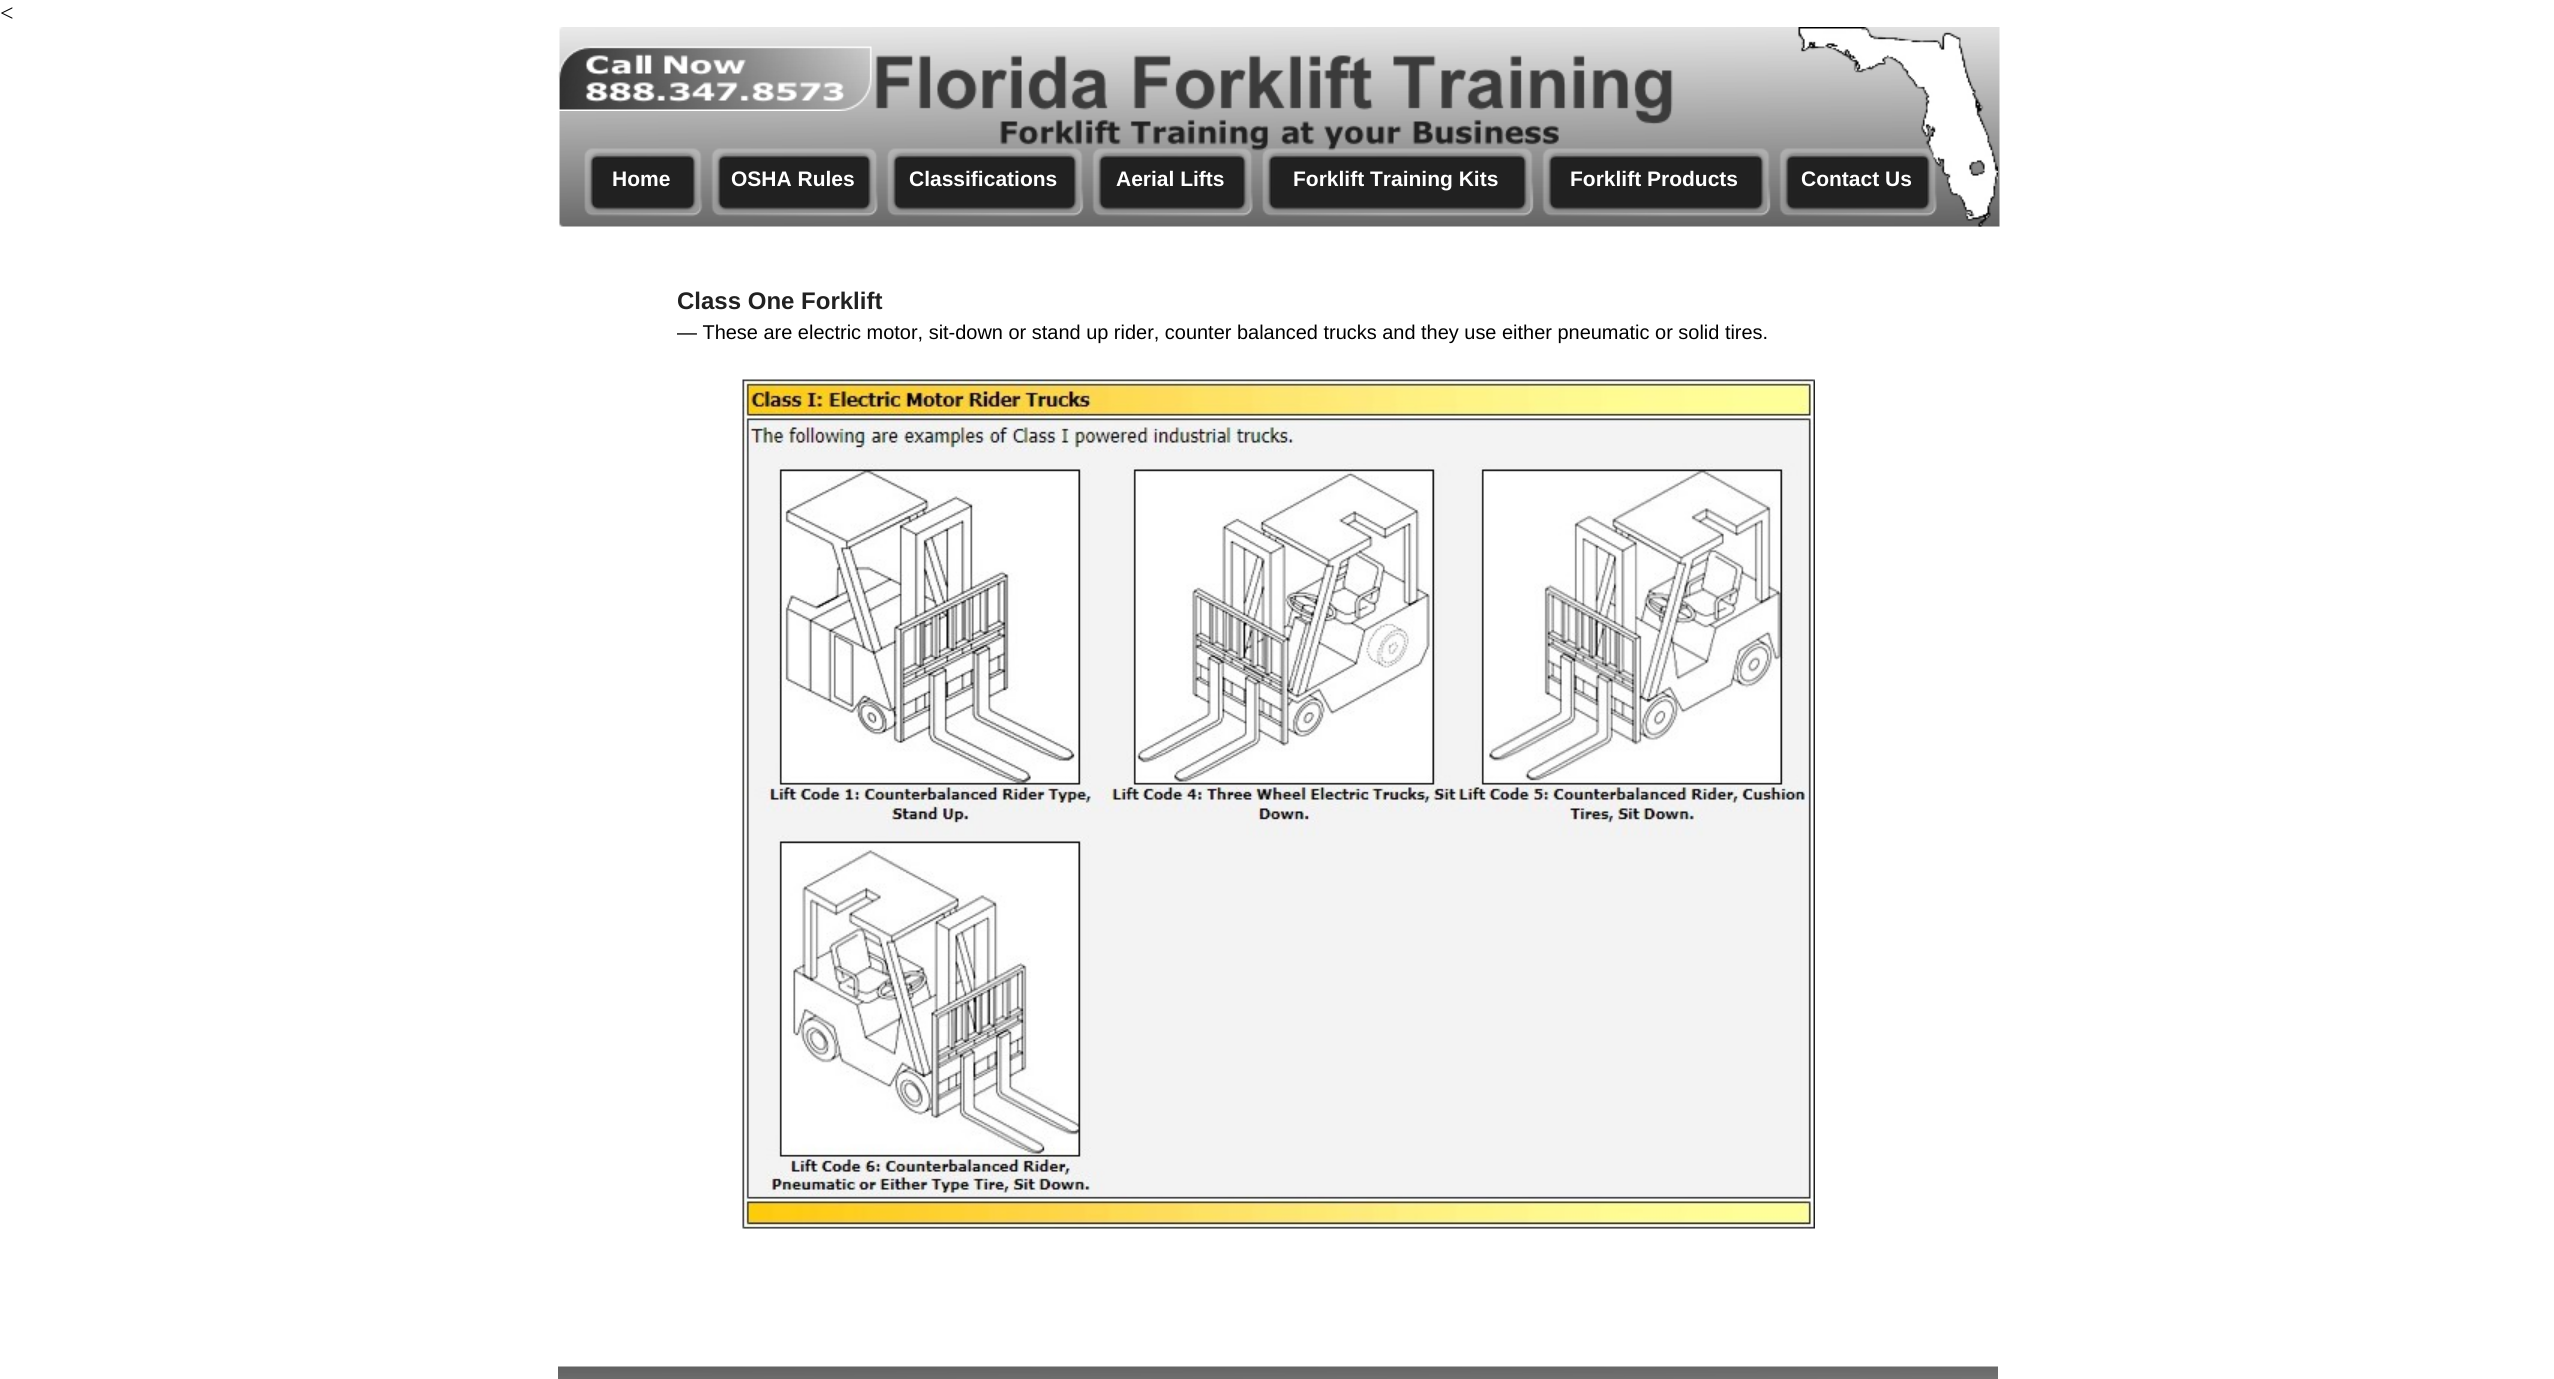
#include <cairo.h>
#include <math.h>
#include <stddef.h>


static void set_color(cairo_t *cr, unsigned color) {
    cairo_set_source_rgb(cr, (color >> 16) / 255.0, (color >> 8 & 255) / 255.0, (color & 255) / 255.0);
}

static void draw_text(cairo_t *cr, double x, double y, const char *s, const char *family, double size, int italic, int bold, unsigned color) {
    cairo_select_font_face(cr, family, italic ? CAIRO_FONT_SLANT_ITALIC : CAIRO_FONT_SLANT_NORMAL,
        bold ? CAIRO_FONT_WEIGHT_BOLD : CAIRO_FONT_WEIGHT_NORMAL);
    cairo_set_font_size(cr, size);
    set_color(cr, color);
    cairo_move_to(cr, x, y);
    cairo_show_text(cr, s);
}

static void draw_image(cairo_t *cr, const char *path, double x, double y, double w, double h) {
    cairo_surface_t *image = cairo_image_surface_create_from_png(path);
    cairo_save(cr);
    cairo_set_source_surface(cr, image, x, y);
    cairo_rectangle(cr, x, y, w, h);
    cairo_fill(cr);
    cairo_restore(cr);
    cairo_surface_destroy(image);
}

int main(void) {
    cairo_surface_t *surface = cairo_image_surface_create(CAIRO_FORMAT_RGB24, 2554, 1379);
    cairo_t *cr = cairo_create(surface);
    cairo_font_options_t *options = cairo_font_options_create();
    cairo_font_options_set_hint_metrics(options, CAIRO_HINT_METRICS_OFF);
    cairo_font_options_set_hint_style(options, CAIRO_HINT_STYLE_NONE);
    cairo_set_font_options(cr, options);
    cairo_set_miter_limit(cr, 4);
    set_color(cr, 0xFFFFFF);
    cairo_paint(cr);
    draw_text(cr, 0, 21, "<", "Liberation Serif", 24, 0, 0, 0x000000);
    draw_image(cr, "assets/img1.png", 559, 27, 1441, 200);
    draw_image(cr, "assets/img2.png", 558, 46, 314, 65);
    draw_image(cr, "assets/img3.png", 875, 55, 798, 70);
    draw_image(cr, "assets/img4.png", 1798, 27, 200, 200);
    draw_image(cr, "assets/img5.png", 584, 148, 119, 69);
    draw_text(cr, 612, 186, "Home", "Liberation Sans", 21, 0, 1, 0xFFFFFF);
    draw_image(cr, "assets/img6.png", 711, 148, 167, 69);
    draw_text(cr, 731, 186, "OSHA Rules", "Liberation Sans", 21, 0, 1, 0xFFFFFF);
    draw_image(cr, "assets/img7.png", 886, 148, 198, 69);
    draw_text(cr, 909, 186, "Classifications", "Liberation Sans", 21, 0, 1, 0xFFFFFF);
    draw_image(cr, "assets/img8.png", 1092, 148, 161, 69);
    draw_text(cr, 1116, 186, "Aerial Lifts", "Liberation Sans", 21, 0, 1, 0xFFFFFF);
    draw_image(cr, "assets/img9.png", 1262, 148, 272, 69);
    draw_text(cr, 1293, 186, "Forklift Training Kits", "Liberation Sans", 21, 0, 1, 0xFFFFFF);
    draw_image(cr, "assets/img10.png", 1542, 148, 229, 69);
    draw_text(cr, 1570, 186, "Forklift Products", "Liberation Sans", 21, 0, 1, 0xFFFFFF);
    draw_image(cr, "assets/img11.png", 1779, 148, 158, 69);
    draw_text(cr, 1801, 186, "Contact Us", "Liberation Sans", 21, 0, 1, 0xFFFFFF);
    draw_text(cr, 677, 309, "Class One Forklift", "Liberation Sans", 24, 0, 1, 0x212121);
    draw_text(cr, 677, 339, "— These are electric motor, sit-down or stand up rider, counter balanced trucks and they use either pneumatic or solid tires.", "Liberation Sans", 19.95, 0, 0, 0x000000);
    draw_image(cr, "assets/img12.png", 742, 379, 1073, 850);
    draw_image(cr, "assets/img13.png", 558, 1366, 1440, 13);
    cairo_surface_write_to_png(surface, "output.png");
    cairo_font_options_destroy(options);
    cairo_destroy(cr);
    cairo_surface_destroy(surface);
    return 0;
}
